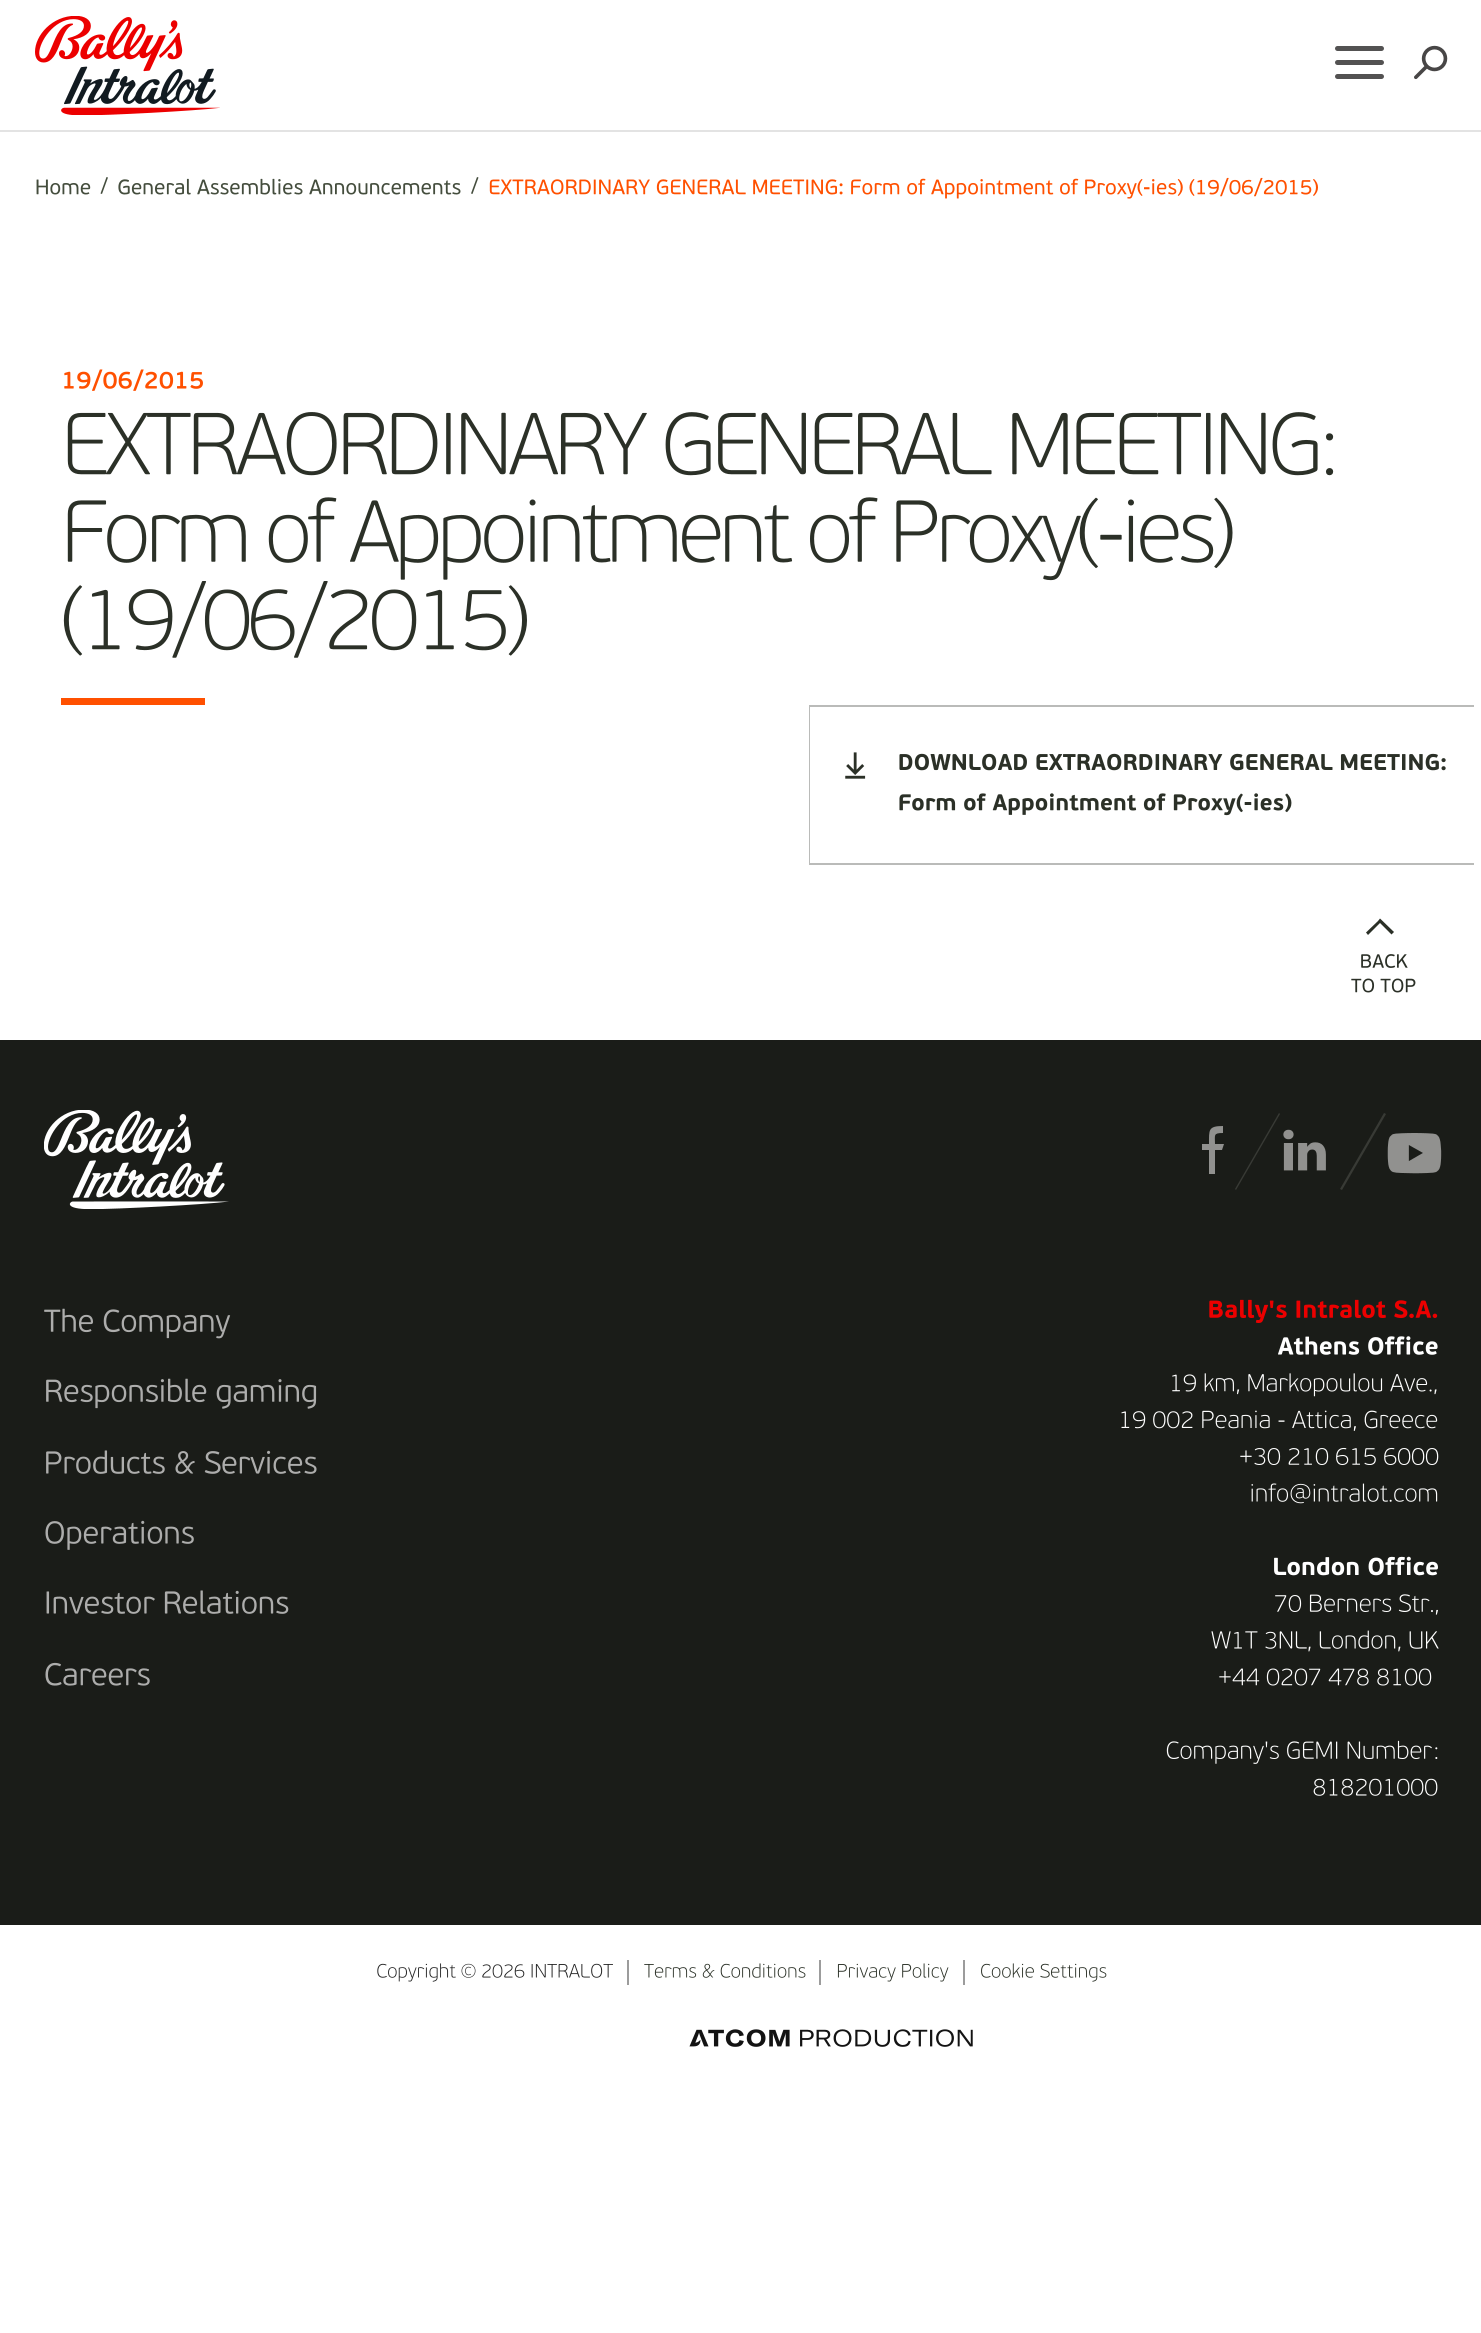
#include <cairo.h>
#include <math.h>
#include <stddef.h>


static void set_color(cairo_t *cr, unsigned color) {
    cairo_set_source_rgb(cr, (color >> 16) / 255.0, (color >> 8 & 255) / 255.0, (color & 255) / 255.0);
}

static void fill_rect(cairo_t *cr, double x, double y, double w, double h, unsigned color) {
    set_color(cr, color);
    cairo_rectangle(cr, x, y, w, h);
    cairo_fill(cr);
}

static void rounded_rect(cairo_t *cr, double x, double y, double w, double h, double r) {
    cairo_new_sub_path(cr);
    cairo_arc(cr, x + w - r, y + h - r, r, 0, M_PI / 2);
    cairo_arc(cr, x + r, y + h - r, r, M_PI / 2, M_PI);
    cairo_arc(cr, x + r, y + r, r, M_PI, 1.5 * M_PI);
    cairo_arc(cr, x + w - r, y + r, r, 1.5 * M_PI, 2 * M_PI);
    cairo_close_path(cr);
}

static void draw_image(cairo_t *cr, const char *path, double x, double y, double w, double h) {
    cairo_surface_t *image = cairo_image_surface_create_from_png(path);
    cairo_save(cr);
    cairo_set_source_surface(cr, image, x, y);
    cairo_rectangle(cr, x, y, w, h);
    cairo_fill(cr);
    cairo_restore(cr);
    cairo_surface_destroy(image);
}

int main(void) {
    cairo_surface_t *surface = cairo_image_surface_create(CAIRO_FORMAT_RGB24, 1481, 2333);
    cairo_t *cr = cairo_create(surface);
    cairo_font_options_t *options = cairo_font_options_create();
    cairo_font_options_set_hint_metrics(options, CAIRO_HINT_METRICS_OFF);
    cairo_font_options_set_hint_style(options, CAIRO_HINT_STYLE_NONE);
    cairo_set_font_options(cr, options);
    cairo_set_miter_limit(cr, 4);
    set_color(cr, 0xFFFFFF);
    cairo_paint(cr);
    fill_rect(cr, 0, 130, 1481, 2, 0xE3E3E3);
    draw_image(cr, "assets/img1.png", 35, 16, 185, 99);
    set_color(cr, 0x535252);
    rounded_rect(cr, 1335, 60, 49, 5, 2.5);
    cairo_fill(cr);
    rounded_rect(cr, 1335, 46, 49, 5, 2.5);
    cairo_fill(cr);
    rounded_rect(cr, 1335, 74, 49, 5, 2.5);
    cairo_fill(cr);
    draw_image(cr, "assets/img2.png", 1414, 45, 34, 35);
    draw_image(cr, "assets/img3.png", 36, 179, 55, 16);
    set_color(cr, 0x444D3D);
    cairo_new_path(cr);
    cairo_move_to(cr, 106.5, 177);
    cairo_line_to(cr, 108, 177.5);
    cairo_line_to(cr, 102, 194);
    cairo_line_to(cr, 100.5, 193.5);
    cairo_close_path(cr);
    cairo_fill(cr);
    draw_image(cr, "assets/img4.png", 118, 178, 343, 17);
    cairo_new_path(cr);
    cairo_move_to(cr, 477, 177);
    cairo_line_to(cr, 478.5, 177.5);
    cairo_line_to(cr, 472.5, 194);
    cairo_line_to(cr, 471, 193.5);
    cairo_close_path(cr);
    cairo_fill(cr);
    draw_image(cr, "assets/img5.png", 489, 177, 829, 22);
    draw_image(cr, "assets/img6.png", 64, 369, 139, 22);
    draw_image(cr, "assets/img7.png", 67, 412, 1267, 64);
    draw_image(cr, "assets/img8.png", 67, 497, 1166, 84);
    draw_image(cr, "assets/img9.png", 63, 581, 464, 77);
    fill_rect(cr, 61, 698, 144, 7, 0xFF5000);
    fill_rect(cr, 809, 705, 665, 2, 0xBABBB9);
    fill_rect(cr, 809, 863, 665, 2, 0xBABBB9);
    fill_rect(cr, 809, 705, 2, 160, 0xBABBB9);
    fill_rect(cr, 810, 707, 1, 156, 0xFFFFFF);
    draw_image(cr, "assets/img10.png", 845, 752, 21, 27);
    draw_image(cr, "assets/img11.png", 899, 753, 547, 18);
    draw_image(cr, "assets/img12.png", 899, 793, 393, 23);
    fill_rect(cr, 0, 1040, 1481, 885, 0x1A1C18);
    set_color(cr, 0x2B3027);
    cairo_new_path(cr);
    cairo_move_to(cr, 1378, 921);
    cairo_line_to(cr, 1366, 932.5);
    cairo_line_to(cr, 1368, 935);
    cairo_line_to(cr, 1380, 923);
    cairo_line_to(cr, 1391.5, 934.5);
    cairo_line_to(cr, 1394, 932);
    cairo_line_to(cr, 1380, 918.5);
    cairo_close_path(cr);
    cairo_fill(cr);
    draw_image(cr, "assets/img13.png", 1361, 954, 47, 14);
    draw_image(cr, "assets/img14.png", 1351, 978, 65, 15);
    draw_image(cr, "assets/img15.png", 44, 1110, 185, 99);
    set_color(cr, 0x91918F);
    cairo_new_path(cr);
    cairo_move_to(cr, 1223, 1126);
    cairo_curve_to(cr, 1208, 1126, 1209, 1130, 1209, 1144);
    cairo_line_to(cr, 1202, 1144);
    cairo_line_to(cr, 1202, 1150);
    cairo_line_to(cr, 1209, 1150);
    cairo_line_to(cr, 1209, 1174);
    cairo_line_to(cr, 1215, 1174);
    cairo_line_to(cr, 1215, 1150);
    cairo_line_to(cr, 1222, 1150);
    cairo_line_to(cr, 1224, 1144);
    cairo_line_to(cr, 1215, 1144);
    cairo_curve_to(cr, 1215, 1135, 1213, 1133, 1223, 1133);
    cairo_close_path(cr);
    cairo_fill(cr);
    set_color(cr, 0x383A35);
    cairo_new_path(cr);
    cairo_move_to(cr, 1279, 1113);
    cairo_line_to(cr, 1280, 1114);
    cairo_line_to(cr, 1236, 1190);
    cairo_line_to(cr, 1235, 1189);
    cairo_close_path(cr);
    cairo_fill(cr);
    draw_image(cr, "assets/img16.png", 1283, 1129, 43, 42);
    cairo_new_path(cr);
    cairo_move_to(cr, 1384, 1113);
    cairo_line_to(cr, 1386, 1114);
    cairo_line_to(cr, 1342, 1190);
    cairo_line_to(cr, 1340, 1189);
    cairo_close_path(cr);
    cairo_fill(cr);
    draw_image(cr, "assets/img17.png", 1387, 1133, 55, 41);
    draw_image(cr, "assets/img18.png", 44, 1308, 187, 31);
    draw_image(cr, "assets/img19.png", 46, 1378, 271, 31);
    draw_image(cr, "assets/img20.png", 46, 1450, 271, 24);
    draw_image(cr, "assets/img21.png", 45, 1520, 149, 30);
    draw_image(cr, "assets/img22.png", 46, 1590, 243, 24);
    draw_image(cr, "assets/img23.png", 45, 1662, 105, 24);
    draw_image(cr, "assets/img24.png", 1209, 1299, 229, 24);
    draw_image(cr, "assets/img25.png", 1278, 1336, 160, 19);
    draw_image(cr, "assets/img26.png", 1172, 1373, 265, 24);
    draw_image(cr, "assets/img27.png", 1121, 1410, 317, 21);
    draw_image(cr, "assets/img28.png", 1240, 1447, 199, 18);
    draw_image(cr, "assets/img29.png", 1251, 1483, 187, 21);
    draw_image(cr, "assets/img30.png", 1274, 1556, 164, 20);
    draw_image(cr, "assets/img31.png", 1275, 1594, 163, 21);
    draw_image(cr, "assets/img32.png", 1211, 1630, 228, 22);
    draw_image(cr, "assets/img33.png", 1219, 1668, 213, 18);
    draw_image(cr, "assets/img34.png", 1166, 1740, 266, 24);
    draw_image(cr, "assets/img35.png", 1435, 1747, 3, 12);
    draw_image(cr, "assets/img36.png", 1313, 1778, 125, 18);
    draw_image(cr, "assets/img37.png", 377, 1963, 236, 19);
    fill_rect(cr, 627, 1960, 2, 25, 0x9C9C9C);
    draw_image(cr, "assets/img38.png", 644, 1963, 162, 15);
    fill_rect(cr, 819, 1960, 2, 25, 0x9C9C9C);
    draw_image(cr, "assets/img39.png", 837, 1963, 112, 19);
    fill_rect(cr, 963, 1960, 2, 25, 0x9C9C9C);
    draw_image(cr, "assets/img40.png", 981, 1963, 126, 19);
    draw_image(cr, "assets/img41.png", 689, 2029, 284, 18);
    cairo_surface_write_to_png(surface, "output.png");
    cairo_font_options_destroy(options);
    cairo_destroy(cr);
    cairo_surface_destroy(surface);
    return 0;
}
